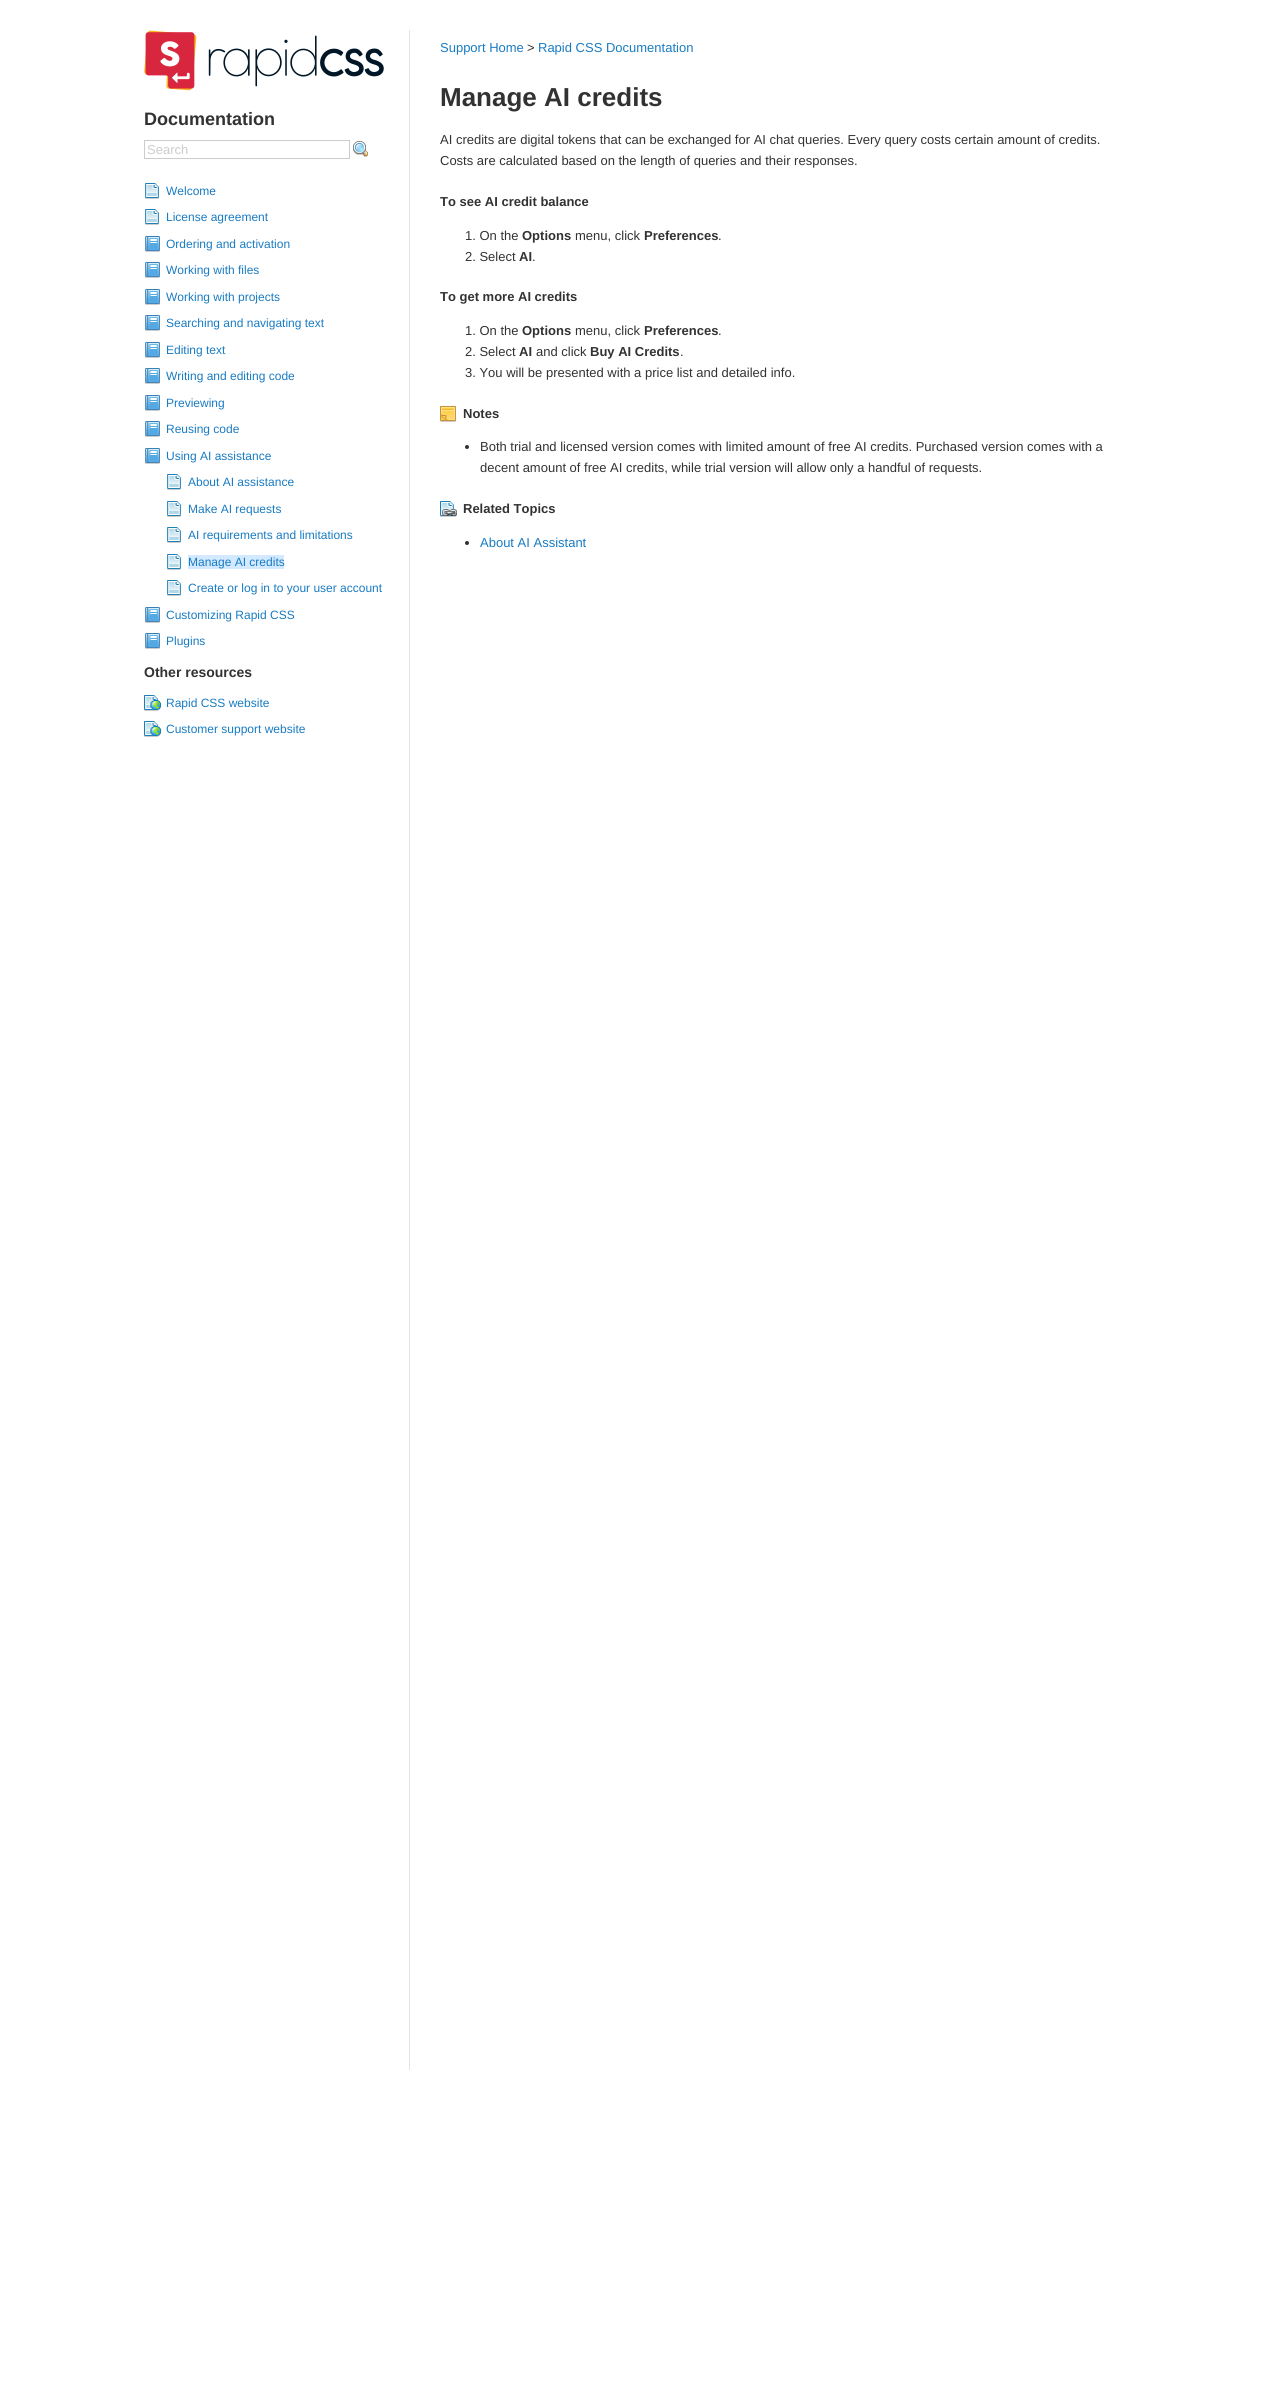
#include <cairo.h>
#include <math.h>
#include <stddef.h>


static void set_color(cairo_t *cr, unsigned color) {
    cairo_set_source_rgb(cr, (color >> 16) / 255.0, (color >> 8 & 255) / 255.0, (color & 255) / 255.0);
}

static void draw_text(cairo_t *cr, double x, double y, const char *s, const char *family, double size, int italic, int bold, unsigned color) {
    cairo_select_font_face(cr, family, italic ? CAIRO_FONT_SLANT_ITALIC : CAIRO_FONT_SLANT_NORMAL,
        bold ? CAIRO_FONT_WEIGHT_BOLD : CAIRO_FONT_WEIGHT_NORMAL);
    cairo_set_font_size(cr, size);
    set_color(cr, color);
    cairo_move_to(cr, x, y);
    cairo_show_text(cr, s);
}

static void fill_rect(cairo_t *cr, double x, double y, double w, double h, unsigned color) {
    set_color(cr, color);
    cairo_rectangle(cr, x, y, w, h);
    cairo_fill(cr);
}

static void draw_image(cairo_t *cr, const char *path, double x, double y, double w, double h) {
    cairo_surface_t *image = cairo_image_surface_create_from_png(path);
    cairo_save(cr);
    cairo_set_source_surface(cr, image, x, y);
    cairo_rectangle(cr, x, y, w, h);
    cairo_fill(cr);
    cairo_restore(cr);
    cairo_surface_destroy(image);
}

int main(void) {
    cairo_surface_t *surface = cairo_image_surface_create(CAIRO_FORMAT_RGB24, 1271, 2386);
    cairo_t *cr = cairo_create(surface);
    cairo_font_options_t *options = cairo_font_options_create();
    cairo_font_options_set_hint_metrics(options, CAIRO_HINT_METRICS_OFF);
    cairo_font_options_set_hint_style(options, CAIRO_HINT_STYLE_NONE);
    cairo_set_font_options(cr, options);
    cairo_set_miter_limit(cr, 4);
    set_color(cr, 0xFFFFFF);
    cairo_paint(cr);
    fill_rect(cr, 409, 30, 1, 2040, 0xE0E5E9);
    draw_image(cr, "assets/img1.png", 144, 30, 240, 61);
    draw_text(cr, 144, 125, "Documentation", "Liberation Sans", 18, 0, 1, 0x323232);
    cairo_rectangle(cr, 144.5, 140.5, 205, 18);
    set_color(cr, 0xCCCCCC);
    cairo_set_line_width(cr, 1);
    cairo_stroke(cr);
    draw_text(cr, 147, 154, "Search", "Liberation Sans", 13, 0, 0, 0xCCCCCC);
    draw_image(cr, "assets/img2.png", 353, 141, 15, 16);
    draw_image(cr, "assets/img3.png", 145, 183, 14, 16);
    draw_text(cr, 166, 195, "Welcome", "Liberation Sans", 12, 0, 0, 0x197BC2);
    draw_image(cr, "assets/img3.png", 145, 209, 14, 16);
    draw_text(cr, 166, 221, "License agreement", "Liberation Sans", 12, 0, 0, 0x197BC2);
    draw_image(cr, "assets/img4.png", 145, 236, 15, 16);
    draw_text(cr, 166, 248, "Ordering and activation", "Liberation Sans", 12, 0, 0, 0x197BC2);
    draw_image(cr, "assets/img4.png", 145, 262, 15, 16);
    draw_text(cr, 166, 274, "Working with files", "Liberation Sans", 12, 0, 0, 0x197BC2);
    draw_image(cr, "assets/img4.png", 145, 289, 15, 16);
    draw_text(cr, 166, 301, "Working with projects", "Liberation Sans", 12, 0, 0, 0x197BC2);
    draw_image(cr, "assets/img4.png", 145, 315, 15, 16);
    draw_text(cr, 166, 327, "Searching and navigating text", "Liberation Sans", 12, 0, 0, 0x197BC2);
    draw_image(cr, "assets/img4.png", 145, 342, 15, 16);
    draw_text(cr, 166, 354, "Editing text", "Liberation Sans", 12, 0, 0, 0x197BC2);
    draw_image(cr, "assets/img4.png", 145, 368, 15, 16);
    draw_text(cr, 166, 380, "Writing and editing code", "Liberation Sans", 12, 0, 0, 0x197BC2);
    draw_image(cr, "assets/img4.png", 145, 395, 15, 16);
    draw_text(cr, 166, 407, "Previewing", "Liberation Sans", 12, 0, 0, 0x197BC2);
    draw_image(cr, "assets/img4.png", 145, 421, 15, 16);
    draw_text(cr, 166, 433, "Reusing code", "Liberation Sans", 12, 0, 0, 0x197BC2);
    draw_image(cr, "assets/img4.png", 145, 448, 15, 16);
    draw_text(cr, 166, 460, "Using AI assistance", "Liberation Sans", 12, 0, 0, 0x197BC2);
    draw_image(cr, "assets/img5.png", 167, 474, 14, 16);
    draw_text(cr, 188, 486, "About AI assistance", "Liberation Sans", 12, 0, 0, 0x197BC2);
    draw_image(cr, "assets/img5.png", 167, 501, 14, 16);
    draw_text(cr, 188, 513, "Make AI requests", "Liberation Sans", 12, 0, 0, 0x197BC2);
    draw_image(cr, "assets/img5.png", 167, 527, 14, 16);
    draw_text(cr, 188, 539, "AI requirements and limitations", "Liberation Sans", 12, 0, 0, 0x197BC2);
    draw_image(cr, "assets/img5.png", 167, 554, 14, 16);
    fill_rect(cr, 188, 555, 96, 14, 0xD2E9FF);
    draw_text(cr, 188, 566, "Manage AI credits", "Liberation Sans", 12, 0, 0, 0x197BC2);
    draw_image(cr, "assets/img5.png", 167, 580, 14, 16);
    draw_text(cr, 188, 592, "Create or log in to your user account", "Liberation Sans", 12, 0, 0, 0x197BC2);
    draw_image(cr, "assets/img4.png", 145, 607, 15, 16);
    draw_text(cr, 166, 619, "Customizing Rapid CSS", "Liberation Sans", 12, 0, 0, 0x197BC2);
    draw_image(cr, "assets/img4.png", 145, 633, 15, 16);
    draw_text(cr, 166, 645, "Plugins", "Liberation Sans", 12, 0, 0, 0x197BC2);
    draw_text(cr, 144, 677, "Other resources", "Liberation Sans", 14, 0, 1, 0x323232);
    draw_image(cr, "assets/img6.png", 144, 695, 17, 16);
    draw_text(cr, 166, 707, "Rapid CSS website", "Liberation Sans", 12, 0, 0, 0x197BC2);
    draw_image(cr, "assets/img6.png", 144, 721, 17, 16);
    draw_text(cr, 166, 733, "Customer support website", "Liberation Sans", 12, 0, 0, 0x197BC2);
    draw_text(cr, 440, 52, "Support Home", "Liberation Sans", 13, 0, 0, 0x197BC2);
    draw_text(cr, 527, 52, ">", "Liberation Sans", 13, 0, 0, 0x323232);
    draw_text(cr, 538, 52, "Rapid CSS Documentation", "Liberation Sans", 13, 0, 0, 0x197BC2);
    draw_text(cr, 440, 106, "Manage AI credits", "Liberation Sans", 26, 0, 1, 0x323232);
    draw_text(cr, 440, 144, "AI credits are digital tokens that can be exchanged for AI chat queries. Every query costs certain amount of credits.", "Liberation Sans", 13, 0, 0, 0x323232);
    draw_text(cr, 440, 165, "Costs are calculated based on the length of queries and their responses.", "Liberation Sans", 13, 0, 0, 0x323232);
    draw_text(cr, 440, 206, "To see AI credit balance", "Liberation Sans", 13, 0, 1, 0x323232);
    draw_text(cr, 465, 240, "1. On the", "Liberation Sans", 13, 0, 0, 0x323232);
    draw_text(cr, 522, 240, "Options", "Liberation Sans", 13, 0, 1, 0x323232);
    draw_text(cr, 575, 240, "menu, click", "Liberation Sans", 13, 0, 0, 0x323232);
    draw_text(cr, 644, 240, "Preferences", "Liberation Sans", 13, 0, 1, 0x323232);
    draw_text(cr, 718, 240, ".", "Liberation Sans", 13, 0, 0, 0x323232);
    draw_text(cr, 465, 261, "2. Select", "Liberation Sans", 13, 0, 0, 0x323232);
    draw_text(cr, 519, 261, "AI", "Liberation Sans", 13, 0, 1, 0x323232);
    draw_text(cr, 532, 261, ".", "Liberation Sans", 13, 0, 0, 0x323232);
    draw_text(cr, 440, 301, "To get more AI credits", "Liberation Sans", 13, 0, 1, 0x323232);
    draw_text(cr, 465, 335, "1. On the", "Liberation Sans", 13, 0, 0, 0x323232);
    draw_text(cr, 522, 335, "Options", "Liberation Sans", 13, 0, 1, 0x323232);
    draw_text(cr, 575, 335, "menu, click", "Liberation Sans", 13, 0, 0, 0x323232);
    draw_text(cr, 644, 335, "Preferences", "Liberation Sans", 13, 0, 1, 0x323232);
    draw_text(cr, 718, 335, ".", "Liberation Sans", 13, 0, 0, 0x323232);
    draw_text(cr, 465, 356, "2. Select", "Liberation Sans", 13, 0, 0, 0x323232);
    draw_text(cr, 519, 356, "AI", "Liberation Sans", 13, 0, 1, 0x323232);
    draw_text(cr, 536, 356, "and click", "Liberation Sans", 13, 0, 0, 0x323232);
    draw_text(cr, 590, 356, "Buy AI Credits", "Liberation Sans", 13, 0, 1, 0x323232);
    draw_text(cr, 680, 356, ".", "Liberation Sans", 13, 0, 0, 0x323232);
    draw_text(cr, 465, 377, "3. You will be presented with a price list and detailed info.", "Liberation Sans", 13, 0, 0, 0x323232);
    draw_image(cr, "assets/img7.png", 440, 406, 16, 16);
    draw_text(cr, 463, 418, "Notes", "Liberation Sans", 13, 0, 1, 0x323232);
    cairo_new_path(cr);
    cairo_arc(cr, 467, 447, 2, 0, 2 * M_PI);
    cairo_fill(cr);
    draw_text(cr, 480, 451, "Both trial and licensed version comes with limited amount of free AI credits. Purchased version comes with a", "Liberation Sans", 13, 0, 0, 0x323232);
    draw_text(cr, 480, 472, "decent amount of free AI credits, while trial version will allow only a handful of requests.", "Liberation Sans", 13, 0, 0, 0x323232);
    draw_image(cr, "assets/img8.png", 440, 501, 17, 16);
    draw_text(cr, 463, 513, "Related Topics", "Liberation Sans", 13, 0, 1, 0x323232);
    cairo_new_path(cr);
    cairo_arc(cr, 467, 543, 2, 0, 2 * M_PI);
    cairo_fill(cr);
    draw_text(cr, 480, 547, "About AI Assistant", "Liberation Sans", 13, 0, 0, 0x197BC2);
    cairo_surface_write_to_png(surface, "output.png");
    cairo_font_options_destroy(options);
    cairo_destroy(cr);
    cairo_surface_destroy(surface);
    return 0;
}
